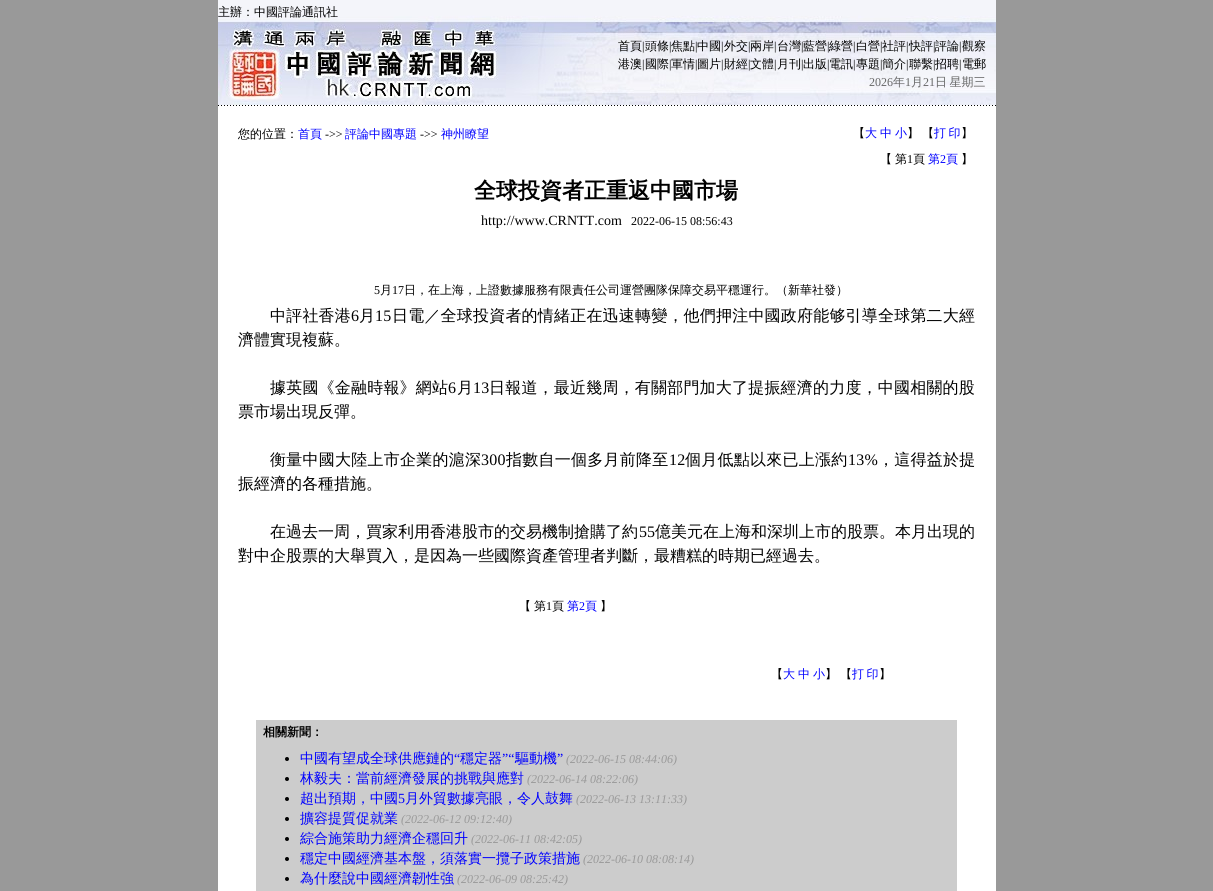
#include <cairo.h>
#include <math.h>
#include <stddef.h>


static void set_color(cairo_t *cr, unsigned color) {
    cairo_set_source_rgb(cr, (color >> 16) / 255.0, (color >> 8 & 255) / 255.0, (color & 255) / 255.0);
}

static void draw_text(cairo_t *cr, double x, double y, const char *s, const char *family, double size, int italic, int bold, unsigned color) {
    cairo_select_font_face(cr, family, italic ? CAIRO_FONT_SLANT_ITALIC : CAIRO_FONT_SLANT_NORMAL,
        bold ? CAIRO_FONT_WEIGHT_BOLD : CAIRO_FONT_WEIGHT_NORMAL);
    cairo_set_font_size(cr, size);
    set_color(cr, color);
    cairo_move_to(cr, x, y);
    cairo_show_text(cr, s);
}

static void draw_spaced(cairo_t *cr, double x, double y, const char *s, double letter, double word) {
    cairo_move_to(cr, x, y);
    while (*s) {
        char ch[5] = {0};
        int n = 0;
        do ch[n++] = *s++; while ((*s & 0xC0) == 0x80);
        cairo_show_text(cr, ch);
        cairo_rel_move_to(cr, letter + word * (*ch == ' '), 0);
    }
}

static void fill_rect(cairo_t *cr, double x, double y, double w, double h, unsigned color) {
    set_color(cr, color);
    cairo_rectangle(cr, x, y, w, h);
    cairo_fill(cr);
}

static void draw_image(cairo_t *cr, const char *path, double x, double y, double w, double h) {
    cairo_surface_t *image = cairo_image_surface_create_from_png(path);
    cairo_save(cr);
    cairo_set_source_surface(cr, image, x, y);
    cairo_rectangle(cr, x, y, w, h);
    cairo_fill(cr);
    cairo_restore(cr);
    cairo_surface_destroy(image);
}

int main(void) {
    cairo_surface_t *surface = cairo_image_surface_create(CAIRO_FORMAT_RGB24, 1213, 891);
    cairo_t *cr = cairo_create(surface);
    cairo_font_options_t *options = cairo_font_options_create();
    cairo_font_options_set_hint_metrics(options, CAIRO_HINT_METRICS_OFF);
    cairo_font_options_set_hint_style(options, CAIRO_HINT_STYLE_NONE);
    cairo_set_font_options(cr, options);
    cairo_set_miter_limit(cr, 4);
    set_color(cr, 0x999999);
    cairo_paint(cr);
    draw_image(cr, "assets/img1.png", 218, 0, 778, 105);
    draw_text(cr, 218, 16, "主辦：中國評論通訊社", "WenQuanYi Zen Hei Medium", 12, 0, 0, 0x000000);
    draw_text(cr, 618, 50, "首頁", "WenQuanYi Zen Hei Medium", 12, 0, 0, 0x000000);
    draw_text(cr, 642, 50, "|", "Liberation Serif", 12, 0, 0, 0x000000);
    draw_text(cr, 645, 50, "頭條", "WenQuanYi Zen Hei Medium", 12, 0, 0, 0x000000);
    draw_text(cr, 669, 50, "|", "Liberation Serif", 12, 0, 0, 0x000000);
    draw_text(cr, 671, 50, "焦點", "WenQuanYi Zen Hei Medium", 12, 0, 0, 0x000000);
    draw_text(cr, 695, 50, "|", "Liberation Serif", 12, 0, 0, 0x000000);
    draw_text(cr, 697, 50, "中國", "WenQuanYi Zen Hei Medium", 12, 0, 0, 0x000000);
    draw_text(cr, 721, 50, "|", "Liberation Serif", 12, 0, 0, 0x000000);
    draw_text(cr, 724, 50, "外交", "WenQuanYi Zen Hei Medium", 12, 0, 0, 0x000000);
    draw_text(cr, 748, 50, "|", "Liberation Serif", 12, 0, 0, 0x000000);
    draw_text(cr, 750, 50, "兩岸", "WenQuanYi Zen Hei Medium", 12, 0, 0, 0x000000);
    draw_text(cr, 774, 50, "|", "Liberation Serif", 12, 0, 0, 0x000000);
    draw_text(cr, 777, 50, "台灣", "WenQuanYi Zen Hei Medium", 12, 0, 0, 0x000000);
    draw_text(cr, 801, 50, "|", "Liberation Serif", 12, 0, 0, 0x000000);
    draw_text(cr, 803, 50, "藍營", "WenQuanYi Zen Hei Medium", 12, 0, 0, 0x000000);
    draw_text(cr, 827, 50, "|", "Liberation Serif", 12, 0, 0, 0x000000);
    draw_text(cr, 829, 50, "綠營", "WenQuanYi Zen Hei Medium", 12, 0, 0, 0x000000);
    draw_text(cr, 853, 50, "|", "Liberation Serif", 12, 0, 0, 0x000000);
    draw_text(cr, 856, 50, "白營", "WenQuanYi Zen Hei Medium", 12, 0, 0, 0x000000);
    draw_text(cr, 880, 50, "|", "Liberation Serif", 12, 0, 0, 0x000000);
    draw_text(cr, 882, 50, "社評", "WenQuanYi Zen Hei Medium", 12, 0, 0, 0x000000);
    draw_text(cr, 906, 50, "|", "Liberation Serif", 12, 0, 0, 0x000000);
    draw_text(cr, 909, 50, "快評", "WenQuanYi Zen Hei Medium", 12, 0, 0, 0x000000);
    draw_text(cr, 933, 50, "|", "Liberation Serif", 12, 0, 0, 0x000000);
    draw_text(cr, 935, 50, "評論", "WenQuanYi Zen Hei Medium", 12, 0, 0, 0x000000);
    draw_text(cr, 959, 50, "|", "Liberation Serif", 12, 0, 0, 0x000000);
    draw_text(cr, 962, 50, "觀察", "WenQuanYi Zen Hei Medium", 12, 0, 0, 0x000000);
    draw_text(cr, 618, 68, "港澳", "WenQuanYi Zen Hei Medium", 12, 0, 0, 0x000000);
    draw_text(cr, 642, 68, "|", "Liberation Serif", 12, 0, 0, 0x000000);
    draw_text(cr, 645, 68, "國際", "WenQuanYi Zen Hei Medium", 12, 0, 0, 0x000000);
    draw_text(cr, 669, 68, "|", "Liberation Serif", 12, 0, 0, 0x000000);
    draw_text(cr, 671, 68, "軍情", "WenQuanYi Zen Hei Medium", 12, 0, 0, 0x000000);
    draw_text(cr, 695, 68, "|", "Liberation Serif", 12, 0, 0, 0x000000);
    draw_text(cr, 697, 68, "圖片", "WenQuanYi Zen Hei Medium", 12, 0, 0, 0x000000);
    draw_text(cr, 721, 68, "|", "Liberation Serif", 12, 0, 0, 0x000000);
    draw_text(cr, 724, 68, "財經", "WenQuanYi Zen Hei Medium", 12, 0, 0, 0x000000);
    draw_text(cr, 748, 68, "|", "Liberation Serif", 12, 0, 0, 0x000000);
    draw_text(cr, 750, 68, "文體", "WenQuanYi Zen Hei Medium", 12, 0, 0, 0x000000);
    draw_text(cr, 774, 68, "|", "Liberation Serif", 12, 0, 0, 0x000000);
    draw_text(cr, 777, 68, "月刊", "WenQuanYi Zen Hei Medium", 12, 0, 0, 0x000000);
    draw_text(cr, 801, 68, "|", "Liberation Serif", 12, 0, 0, 0x000000);
    draw_text(cr, 803, 68, "出版", "WenQuanYi Zen Hei Medium", 12, 0, 0, 0x000000);
    draw_text(cr, 827, 68, "|", "Liberation Serif", 12, 0, 0, 0x000000);
    draw_text(cr, 829, 68, "電訊", "WenQuanYi Zen Hei Medium", 12, 0, 0, 0x000000);
    draw_text(cr, 853, 68, "|", "Liberation Serif", 12, 0, 0, 0x000000);
    draw_text(cr, 856, 68, "專題", "WenQuanYi Zen Hei Medium", 12, 0, 0, 0x000000);
    draw_text(cr, 880, 68, "|", "Liberation Serif", 12, 0, 0, 0x000000);
    draw_text(cr, 882, 68, "簡介", "WenQuanYi Zen Hei Medium", 12, 0, 0, 0x000000);
    draw_text(cr, 906, 68, "|", "Liberation Serif", 12, 0, 0, 0x000000);
    draw_text(cr, 909, 68, "聯繫", "WenQuanYi Zen Hei Medium", 12, 0, 0, 0x000000);
    draw_text(cr, 933, 68, "|", "Liberation Serif", 12, 0, 0, 0x000000);
    draw_text(cr, 935, 68, "招聘", "WenQuanYi Zen Hei Medium", 12, 0, 0, 0x000000);
    draw_text(cr, 959, 68, "|", "Liberation Serif", 12, 0, 0, 0x000000);
    draw_text(cr, 962, 68, "電郵", "WenQuanYi Zen Hei Medium", 12, 0, 0, 0x000000);
    draw_text(cr, 869, 86, "2026", "Liberation Serif", 12, 0, 0, 0x666666);
    draw_text(cr, 893, 86, "年", "WenQuanYi Zen Hei Medium", 12, 0, 0, 0x666666);
    draw_text(cr, 905, 86, "1", "Liberation Serif", 12, 0, 0, 0x666666);
    draw_text(cr, 911, 86, "月", "WenQuanYi Zen Hei Medium", 12, 0, 0, 0x666666);
    draw_text(cr, 923, 86, "21", "Liberation Serif", 12, 0, 0, 0x666666);
    cairo_select_font_face(cr, "WenQuanYi Zen Hei Medium", CAIRO_FONT_SLANT_NORMAL, CAIRO_FONT_WEIGHT_NORMAL);
    draw_spaced(cr, 935, 86, "日 星期三", 0, -1);
    draw_image(cr, "assets/img2.png", 218, 105, 778, 1);
    fill_rect(cr, 218, 106, 778, 785, 0xFFFFFF);
    draw_text(cr, 238, 138, "您的位置：", "WenQuanYi Zen Hei Medium", 12, 0, 0, 0x000000);
    draw_text(cr, 298, 138, "首頁", "WenQuanYi Zen Hei Medium", 12, 0, 0, 0x0000FF);
    draw_text(cr, 325, 138, "->>", "Liberation Serif", 12, 0, 0, 0x000000);
    draw_text(cr, 345, 138, "評論中國專題", "WenQuanYi Zen Hei Medium", 12, 0, 0, 0x0000FF);
    draw_text(cr, 420, 138, "->>", "Liberation Serif", 12, 0, 0, 0x000000);
    draw_text(cr, 441, 138, "神州瞭望", "WenQuanYi Zen Hei Medium", 12, 0, 0, 0x0000FF);
    draw_text(cr, 853, 137, "【", "WenQuanYi Zen Hei Medium", 12, 0, 0, 0x000000);
    draw_text(cr, 865, 137, "大", "WenQuanYi Zen Hei Medium", 12, 0, 0, 0x0000FF);
    draw_text(cr, 880, 137, "中", "WenQuanYi Zen Hei Medium", 12, 0, 0, 0x0000FF);
    draw_text(cr, 895, 137, "小", "WenQuanYi Zen Hei Medium", 12, 0, 0, 0x0000FF);
    draw_text(cr, 907, 137, "】", "WenQuanYi Zen Hei Medium", 12, 0, 0, 0x000000);
    draw_text(cr, 922, 137, "【", "WenQuanYi Zen Hei Medium", 12, 0, 0, 0x000000);
    set_color(cr, 0x0000FF);
    draw_spaced(cr, 934, 137, "打 印", 0, -1);
    draw_text(cr, 961, 137, "】", "WenQuanYi Zen Hei Medium", 12, 0, 0, 0x000000);
    draw_text(cr, 880, 163, "【", "WenQuanYi Zen Hei Medium", 12, 0, 0, 0x000000);
    draw_text(cr, 895, 163, "第", "WenQuanYi Zen Hei Medium", 12, 0, 0, 0x000000);
    draw_text(cr, 907, 163, "1", "Liberation Serif", 12, 0, 0, 0x000000);
    draw_text(cr, 913, 163, "頁", "WenQuanYi Zen Hei Medium", 12, 0, 0, 0x000000);
    draw_text(cr, 928, 163, "第", "WenQuanYi Zen Hei Medium", 12, 0, 0, 0x0000FF);
    draw_text(cr, 940, 163, "2", "Liberation Serif", 12, 0, 0, 0x0000FF);
    draw_text(cr, 946, 163, "頁", "WenQuanYi Zen Hei Medium", 12, 0, 0, 0x0000FF);
    draw_text(cr, 961, 163, "】", "WenQuanYi Zen Hei Medium", 12, 0, 0, 0x000000);
    draw_text(cr, 474, 198, "全球投資者正重返中國市場", "WenQuanYi Zen Hei", 22, 0, 1, 0x000000);
    draw_text(cr, 481, 225, "http://www.CRNTT.com", "Liberation Serif", 14, 0, 0, 0x000000);
    draw_text(cr, 631, 225, "2022-06-15 08:56:43", "Liberation Serif", 12, 0, 0, 0x000000);
    draw_text(cr, 374, 294, "5", "Liberation Serif", 12, 0, 0, 0x000000);
    draw_text(cr, 380, 294, "月", "WenQuanYi Zen Hei Medium", 12, 0, 0, 0x000000);
    draw_text(cr, 392, 294, "17", "Liberation Serif", 12, 0, 0, 0x000000);
    draw_text(cr, 404, 294, "日，在上海，上證數據服務有限責任公司運營團隊保障交易平穩運行。（新華社發）", "WenQuanYi Zen Hei Medium", 12, 0, 0, 0x000000);
    cairo_set_font_size(cr, 16);
    draw_spaced(cr, 270, 321, "中評社香港", 0.2, 0);
    cairo_select_font_face(cr, "Liberation Serif", CAIRO_FONT_SLANT_NORMAL, CAIRO_FONT_WEIGHT_NORMAL);
    draw_spaced(cr, 351, 321, "6", 0.2, 0);
    cairo_select_font_face(cr, "WenQuanYi Zen Hei Medium", CAIRO_FONT_SLANT_NORMAL, CAIRO_FONT_WEIGHT_NORMAL);
    draw_spaced(cr, 359, 321, "月", 0.2, 0);
    cairo_select_font_face(cr, "Liberation Serif", CAIRO_FONT_SLANT_NORMAL, CAIRO_FONT_WEIGHT_NORMAL);
    draw_spaced(cr, 375, 321, "15", 0.2, 0);
    cairo_select_font_face(cr, "WenQuanYi Zen Hei Medium", CAIRO_FONT_SLANT_NORMAL, CAIRO_FONT_WEIGHT_NORMAL);
    draw_spaced(cr, 392, 321, "日電／全球投資者的情緒正在迅速轉變，他們押注中國政府能够引導全球第二大經", 0.2, 0);
    draw_text(cr, 238, 345, "濟體實現複蘇。", "WenQuanYi Zen Hei Medium", 16, 0, 0, 0x000000);
    draw_spaced(cr, 270, 393, "據英國《金融時報》網站", 0.2, 0);
    cairo_select_font_face(cr, "Liberation Serif", CAIRO_FONT_SLANT_NORMAL, CAIRO_FONT_WEIGHT_NORMAL);
    draw_spaced(cr, 448, 393, "6", 0.2, 0);
    cairo_select_font_face(cr, "WenQuanYi Zen Hei Medium", CAIRO_FONT_SLANT_NORMAL, CAIRO_FONT_WEIGHT_NORMAL);
    draw_spaced(cr, 457, 393, "月", 0.2, 0);
    cairo_select_font_face(cr, "Liberation Serif", CAIRO_FONT_SLANT_NORMAL, CAIRO_FONT_WEIGHT_NORMAL);
    draw_spaced(cr, 473, 393, "13", 0.2, 0);
    cairo_select_font_face(cr, "WenQuanYi Zen Hei Medium", CAIRO_FONT_SLANT_NORMAL, CAIRO_FONT_WEIGHT_NORMAL);
    draw_spaced(cr, 489, 393, "日報道，最近幾周，有關部門加大了提振經濟的力度，中國相關的股", 0.2, 0);
    draw_text(cr, 238, 417, "票市場出現反彈。", "WenQuanYi Zen Hei Medium", 16, 0, 0, 0x000000);
    draw_spaced(cr, 270, 465, "衡量中國大陸上市企業的滬深", 0.25, 0);
    cairo_select_font_face(cr, "Liberation Serif", CAIRO_FONT_SLANT_NORMAL, CAIRO_FONT_WEIGHT_NORMAL);
    draw_spaced(cr, 481, 465, "300", 0.25, 0);
    cairo_select_font_face(cr, "WenQuanYi Zen Hei Medium", CAIRO_FONT_SLANT_NORMAL, CAIRO_FONT_WEIGHT_NORMAL);
    draw_spaced(cr, 506, 465, "指數自一個多月前降至", 0.25, 0);
    cairo_select_font_face(cr, "Liberation Serif", CAIRO_FONT_SLANT_NORMAL, CAIRO_FONT_WEIGHT_NORMAL);
    draw_spaced(cr, 669, 465, "12", 0.25, 0);
    cairo_select_font_face(cr, "WenQuanYi Zen Hei Medium", CAIRO_FONT_SLANT_NORMAL, CAIRO_FONT_WEIGHT_NORMAL);
    draw_spaced(cr, 685, 465, "個月低點以來已上漲約", 0.25, 0);
    cairo_select_font_face(cr, "Liberation Serif", CAIRO_FONT_SLANT_NORMAL, CAIRO_FONT_WEIGHT_NORMAL);
    draw_spaced(cr, 848, 465, "13%", 0.25, 0);
    cairo_select_font_face(cr, "WenQuanYi Zen Hei Medium", CAIRO_FONT_SLANT_NORMAL, CAIRO_FONT_WEIGHT_NORMAL);
    draw_spaced(cr, 878, 465, "，這得益於提", 0.25, 0);
    draw_text(cr, 238, 489, "振經濟的各種措施。", "WenQuanYi Zen Hei Medium", 16, 0, 0, 0x000000);
    draw_text(cr, 270, 537, "在過去一周，買家利用香港股市的交易機制搶購了約", "WenQuanYi Zen Hei Medium", 16, 0, 0, 0x000000);
    draw_text(cr, 639, 537, "55", "Liberation Serif", 16, 0, 0, 0x000000);
    draw_text(cr, 655, 537, "億美元在上海和深圳上市的股票。本月出現的", "WenQuanYi Zen Hei Medium", 16, 0, 0, 0x000000);
    draw_text(cr, 238, 561, "對中企股票的大舉買入，是因為一些國際資產管理者判斷，最糟糕的時期已經過去。", "WenQuanYi Zen Hei Medium", 16, 0, 0, 0x000000);
    draw_text(cr, 519, 610, "【", "WenQuanYi Zen Hei Medium", 12, 0, 0, 0x000000);
    draw_text(cr, 534, 610, "第", "WenQuanYi Zen Hei Medium", 12, 0, 0, 0x000000);
    draw_text(cr, 546, 610, "1", "Liberation Serif", 12, 0, 0, 0x000000);
    draw_text(cr, 552, 610, "頁", "WenQuanYi Zen Hei Medium", 12, 0, 0, 0x000000);
    draw_text(cr, 567, 610, "第", "WenQuanYi Zen Hei Medium", 12, 0, 0, 0x0000FF);
    draw_text(cr, 579, 610, "2", "Liberation Serif", 12, 0, 0, 0x0000FF);
    draw_text(cr, 585, 610, "頁", "WenQuanYi Zen Hei Medium", 12, 0, 0, 0x0000FF);
    draw_text(cr, 600, 610, "】", "WenQuanYi Zen Hei Medium", 12, 0, 0, 0x000000);
    draw_text(cr, 771, 678, "【", "WenQuanYi Zen Hei Medium", 12, 0, 0, 0x000000);
    draw_text(cr, 783, 678, "大", "WenQuanYi Zen Hei Medium", 12, 0, 0, 0x0000FF);
    draw_text(cr, 798, 678, "中", "WenQuanYi Zen Hei Medium", 12, 0, 0, 0x0000FF);
    draw_text(cr, 813, 678, "小", "WenQuanYi Zen Hei Medium", 12, 0, 0, 0x0000FF);
    draw_text(cr, 825, 678, "】", "WenQuanYi Zen Hei Medium", 12, 0, 0, 0x000000);
    draw_text(cr, 840, 678, "【", "WenQuanYi Zen Hei Medium", 12, 0, 0, 0x000000);
    set_color(cr, 0x0000FF);
    draw_spaced(cr, 852, 678, "打 印", 0, -1);
    draw_text(cr, 879, 678, "】", "WenQuanYi Zen Hei Medium", 12, 0, 0, 0x000000);
    fill_rect(cr, 256, 720, 701, 171, 0xCCCCCC);
    draw_text(cr, 263, 736, "相關新聞：", "WenQuanYi Zen Hei", 12, 0, 1, 0x000000);
    cairo_new_path(cr);
    cairo_arc(cr, 287, 759, 2, 0, 2 * M_PI);
    cairo_fill(cr);
    draw_text(cr, 300, 763, "中國有望成全球供應鏈的", "WenQuanYi Zen Hei Medium", 14, 0, 0, 0x0000FF);
    draw_text(cr, 454, 763, "“", "Liberation Serif", 14, 0, 0, 0x0000FF);
    draw_text(cr, 460, 763, "穩定器", "WenQuanYi Zen Hei Medium", 14, 0, 0, 0x0000FF);
    draw_text(cr, 502, 763, "”“", "Liberation Serif", 14, 0, 0, 0x0000FF);
    draw_text(cr, 515, 763, "驅動機", "WenQuanYi Zen Hei Medium", 14, 0, 0, 0x0000FF);
    draw_text(cr, 557, 763, "”", "Liberation Serif", 14, 0, 0, 0x0000FF);
    draw_text(cr, 566, 763, "(2022-06-15 08:44:06)", "Liberation Serif", 12, 1, 0, 0x999999);
    set_color(cr, 0x000000);
    cairo_new_path(cr);
    cairo_arc(cr, 287, 779, 2, 0, 2 * M_PI);
    cairo_fill(cr);
    draw_text(cr, 300, 783, "林毅夫：當前經濟發展的挑戰與應對", "WenQuanYi Zen Hei Medium", 14, 0, 0, 0x0000FF);
    draw_text(cr, 527, 783, "(2022-06-14 08:22:06)", "Liberation Serif", 12, 1, 0, 0x999999);
    set_color(cr, 0x000000);
    cairo_new_path(cr);
    cairo_arc(cr, 287, 799, 2, 0, 2 * M_PI);
    cairo_fill(cr);
    draw_text(cr, 300, 803, "超出預期，中國", "WenQuanYi Zen Hei Medium", 14, 0, 0, 0x0000FF);
    draw_text(cr, 398, 803, "5", "Liberation Serif", 14, 0, 0, 0x0000FF);
    draw_text(cr, 405, 803, "月外貿數據亮眼，令人鼓舞", "WenQuanYi Zen Hei Medium", 14, 0, 0, 0x0000FF);
    draw_text(cr, 576, 803, "(2022-06-13 13:11:33)", "Liberation Serif", 12, 1, 0, 0x999999);
    set_color(cr, 0x000000);
    cairo_new_path(cr);
    cairo_arc(cr, 287, 819, 2, 0, 2 * M_PI);
    cairo_fill(cr);
    draw_text(cr, 300, 823, "擴容提質促就業", "WenQuanYi Zen Hei Medium", 14, 0, 0, 0x0000FF);
    draw_text(cr, 401, 823, "(2022-06-12 09:12:40)", "Liberation Serif", 12, 1, 0, 0x999999);
    set_color(cr, 0x000000);
    cairo_new_path(cr);
    cairo_arc(cr, 287, 839, 2, 0, 2 * M_PI);
    cairo_fill(cr);
    draw_text(cr, 300, 843, "綜合施策助力經濟企穩回升", "WenQuanYi Zen Hei Medium", 14, 0, 0, 0x0000FF);
    draw_text(cr, 471, 843, "(2022-06-11 08:42:05)", "Liberation Serif", 12, 1, 0, 0x999999);
    set_color(cr, 0x000000);
    cairo_new_path(cr);
    cairo_arc(cr, 287, 859, 2, 0, 2 * M_PI);
    cairo_fill(cr);
    draw_text(cr, 300, 863, "穩定中國經濟基本盤，須落實一攬子政策措施", "WenQuanYi Zen Hei Medium", 14, 0, 0, 0x0000FF);
    draw_text(cr, 583, 863, "(2022-06-10 08:08:14)", "Liberation Serif", 12, 1, 0, 0x999999);
    set_color(cr, 0x000000);
    cairo_new_path(cr);
    cairo_arc(cr, 287, 879, 2, 0, 2 * M_PI);
    cairo_fill(cr);
    draw_text(cr, 300, 883, "為什麼說中國經濟韌性強", "WenQuanYi Zen Hei Medium", 14, 0, 0, 0x0000FF);
    draw_text(cr, 457, 883, "(2022-06-09 08:25:42)", "Liberation Serif", 12, 1, 0, 0x999999);
    cairo_surface_write_to_png(surface, "output.png");
    cairo_font_options_destroy(options);
    cairo_destroy(cr);
    cairo_surface_destroy(surface);
    return 0;
}
